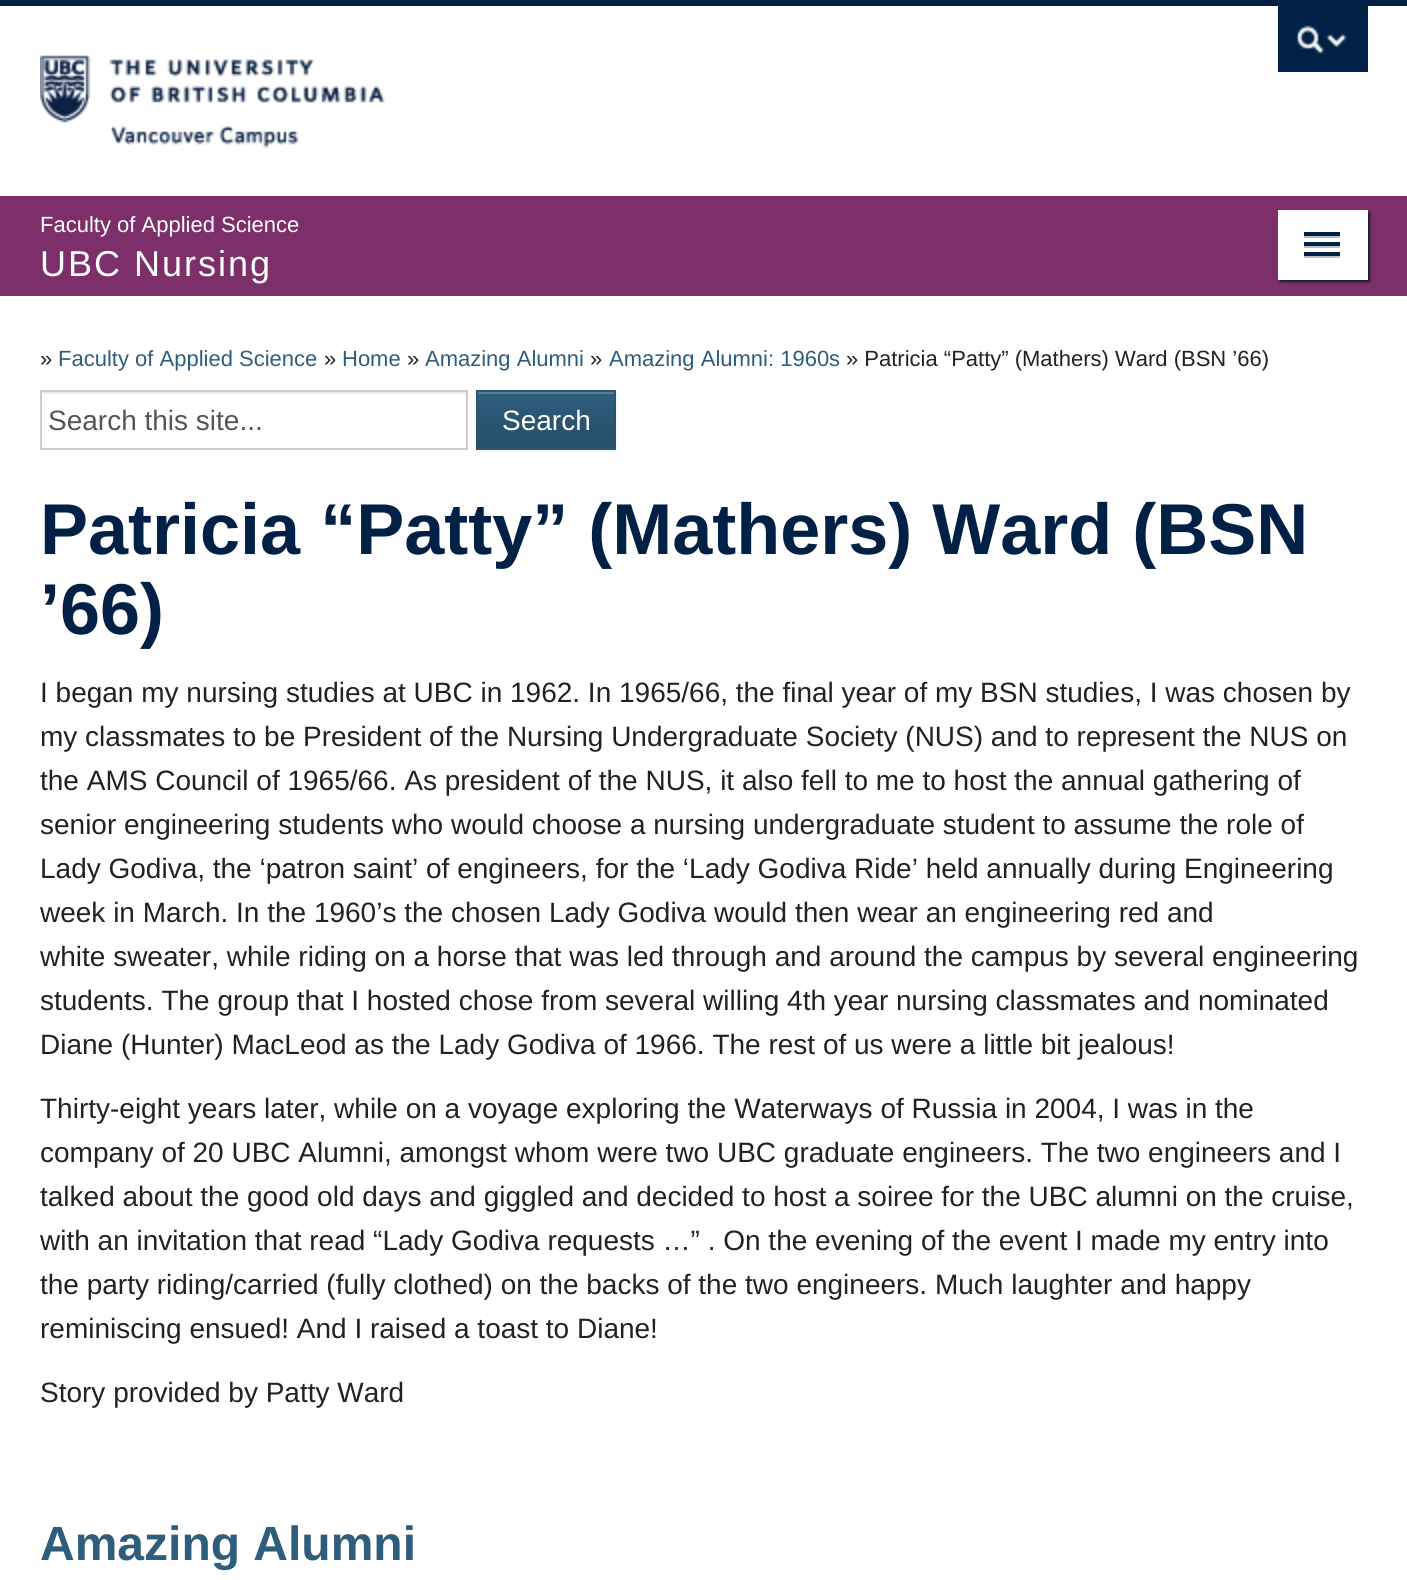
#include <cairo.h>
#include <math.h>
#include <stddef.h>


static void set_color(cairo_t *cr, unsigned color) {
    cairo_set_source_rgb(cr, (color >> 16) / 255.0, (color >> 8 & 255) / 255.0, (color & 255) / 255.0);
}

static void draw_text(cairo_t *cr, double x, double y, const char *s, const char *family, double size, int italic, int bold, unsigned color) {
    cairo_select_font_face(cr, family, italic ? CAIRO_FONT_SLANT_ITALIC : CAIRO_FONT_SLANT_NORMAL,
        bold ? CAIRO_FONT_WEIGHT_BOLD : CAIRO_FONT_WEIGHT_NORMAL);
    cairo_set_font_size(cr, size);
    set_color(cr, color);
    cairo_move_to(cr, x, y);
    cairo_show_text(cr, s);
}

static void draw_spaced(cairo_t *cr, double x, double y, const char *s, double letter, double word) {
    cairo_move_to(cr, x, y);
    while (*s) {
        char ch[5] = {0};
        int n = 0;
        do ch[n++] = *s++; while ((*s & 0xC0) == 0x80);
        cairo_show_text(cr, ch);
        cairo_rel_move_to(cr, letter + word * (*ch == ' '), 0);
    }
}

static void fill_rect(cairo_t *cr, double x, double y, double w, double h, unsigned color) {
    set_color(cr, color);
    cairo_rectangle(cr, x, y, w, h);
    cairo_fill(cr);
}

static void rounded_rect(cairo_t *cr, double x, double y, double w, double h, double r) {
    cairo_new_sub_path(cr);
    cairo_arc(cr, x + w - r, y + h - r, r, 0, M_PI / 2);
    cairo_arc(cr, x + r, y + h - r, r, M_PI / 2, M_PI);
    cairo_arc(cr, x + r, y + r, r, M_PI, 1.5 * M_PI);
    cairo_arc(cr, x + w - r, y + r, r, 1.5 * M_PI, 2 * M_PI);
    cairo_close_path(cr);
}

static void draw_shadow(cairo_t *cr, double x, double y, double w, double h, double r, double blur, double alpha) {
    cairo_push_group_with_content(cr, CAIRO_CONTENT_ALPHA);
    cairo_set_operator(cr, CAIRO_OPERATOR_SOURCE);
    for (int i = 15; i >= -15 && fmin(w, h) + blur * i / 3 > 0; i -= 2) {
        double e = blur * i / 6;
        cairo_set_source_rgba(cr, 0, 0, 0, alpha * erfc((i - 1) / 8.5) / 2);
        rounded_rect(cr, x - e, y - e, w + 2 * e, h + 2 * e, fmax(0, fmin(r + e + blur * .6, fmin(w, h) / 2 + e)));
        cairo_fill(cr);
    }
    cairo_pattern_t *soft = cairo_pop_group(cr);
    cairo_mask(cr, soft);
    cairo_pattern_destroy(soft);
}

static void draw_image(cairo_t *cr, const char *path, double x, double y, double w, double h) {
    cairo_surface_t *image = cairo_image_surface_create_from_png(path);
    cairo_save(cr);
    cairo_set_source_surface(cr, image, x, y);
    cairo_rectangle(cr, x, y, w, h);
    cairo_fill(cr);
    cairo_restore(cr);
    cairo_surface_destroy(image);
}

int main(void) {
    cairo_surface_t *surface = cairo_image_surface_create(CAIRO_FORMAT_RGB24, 1407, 1580);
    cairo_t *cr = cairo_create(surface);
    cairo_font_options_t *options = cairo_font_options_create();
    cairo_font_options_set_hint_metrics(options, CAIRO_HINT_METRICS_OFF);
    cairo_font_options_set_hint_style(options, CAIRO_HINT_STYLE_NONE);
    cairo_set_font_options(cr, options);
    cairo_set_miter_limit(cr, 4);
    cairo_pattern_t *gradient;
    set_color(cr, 0xFFFFFF);
    cairo_paint(cr);
    fill_rect(cr, 0, 0, 1407, 6, 0x002145);
    draw_image(cr, "assets/img1.png", 40, 55, 345, 68);
    fill_rect(cr, 1278, 6, 90, 66, 0x002145);
    draw_image(cr, "assets/img2.png", 1295, 25, 52, 30);
    draw_image(cr, "assets/img3.png", 111, 126, 188, 23);
    fill_rect(cr, 0, 196, 1407, 100, 0x7C2F68);
    draw_text(cr, 40, 232, "Faculty of Applied Science", "Liberation Sans", 22, 0, 0, 0xFFFFFF);
    cairo_set_font_size(cr, 36);
    draw_spaced(cr, 40, 276, "UBC Nursing", 2, 0);
    set_color(cr, 0x191938);
    draw_shadow(cr, 1280, 212, 90, 70, 0, 1, 1);
    fill_rect(cr, 1278, 210, 90, 70, 0xFFFFFF);
    fill_rect(cr, 1304, 236, 36, 2, 0xBFBFBF);
    fill_rect(cr, 1304, 232, 36, 4, 0x002145);
    fill_rect(cr, 1304, 246, 36, 2, 0xBFBFBF);
    fill_rect(cr, 1304, 242, 36, 4, 0x002145);
    fill_rect(cr, 1304, 256, 36, 2, 0xBFBFBF);
    fill_rect(cr, 1304, 252, 36, 4, 0x002145);
    draw_text(cr, 40, 366, "»", "Liberation Sans", 22, 0, 0, 0x222222);
    draw_text(cr, 58, 366, "Faculty of Applied Science", "Liberation Sans", 22, 0, 0, 0x2F5D7C);
    draw_text(cr, 324, 366, "»", "Liberation Sans", 22, 0, 0, 0x222222);
    draw_text(cr, 342, 366, "Home", "Liberation Sans", 22, 0, 0, 0x2F5D7C);
    draw_text(cr, 407, 366, "»", "Liberation Sans", 22, 0, 0, 0x222222);
    draw_text(cr, 425, 366, "Amazing Alumni", "Liberation Sans", 22, 0, 0, 0x2F5D7C);
    draw_text(cr, 590, 366, "»", "Liberation Sans", 22, 0, 0, 0x222222);
    draw_text(cr, 609, 366, "Amazing Alumni: 1960s", "Liberation Sans", 22, 0, 0, 0x2F5D7C);
    draw_text(cr, 846, 366, "» Patricia “Patty” (Mathers) Ward (BSN ’66)", "Liberation Sans", 22, 0, 0, 0x222222);
    fill_rect(cr, 42, 392, 424, 2, 0xECECEC);
    cairo_rectangle(cr, 41, 391, 426, 58);
    set_color(cr, 0xCCCCCC);
    cairo_stroke(cr);
    draw_text(cr, 48, 430, "Search this site...", "Liberation Sans", 28, 0, 0, 0x555555);
    set_color(cr, 0x000000);
    draw_shadow(cr, 476, 392, 140, 60, 0, 2, 0.05);
    fill_rect(cr, 476, 390, 140, 60, 0x2F5D7C);
    gradient = cairo_pattern_create_linear(546, 392, 546, 448);
    cairo_pattern_add_color_stop_rgba(gradient, 0, 0.184, 0.365, 0.486, 1);
    cairo_pattern_add_color_stop_rgba(gradient, 1, 0.149, 0.306, 0.416, 1);
    cairo_set_source(cr, gradient);
    cairo_pattern_destroy(gradient);
    cairo_rectangle(cr, 476, 400, 140, 48);
    cairo_fill(cr);
    fill_rect(cr, 478, 392, 136, 2, 0x597D96);
    cairo_rectangle(cr, 477, 391, 138, 58);
    cairo_set_source_rgba(cr, 0.149, 0.306, 0.416, 0.5);
    cairo_stroke(cr);
    draw_text(cr, 502, 430, "Search", "Liberation Sans", 28, 0, 0, 0xFFFFFF);
    draw_text(cr, 40, 554, "Patricia “Patty” (Mathers) Ward (BSN", "Liberation Sans", 72, 0, 1, 0x002145);
    draw_text(cr, 40, 634, "’66)", "Liberation Sans", 72, 0, 1, 0x002145);
    draw_text(cr, 40, 702, "I began my nursing studies at UBC in 1962. In 1965/66, the final year of my BSN studies, I was chosen by", "Liberation Sans", 28, 0, 0, 0x222222);
    draw_text(cr, 40, 746, "my classmates to be President of the Nursing Undergraduate Society (NUS) and to represent the NUS on", "Liberation Sans", 28, 0, 0, 0x222222);
    draw_text(cr, 40, 790, "the AMS Council of 1965/66. As president of the NUS, it also fell to me to host the annual gathering of", "Liberation Sans", 28, 0, 0, 0x222222);
    draw_text(cr, 40, 834, "senior engineering students who would choose a nursing undergraduate student to assume the role of", "Liberation Sans", 28, 0, 0, 0x222222);
    draw_text(cr, 40, 878, "Lady Godiva, the ‘patron saint’ of engineers, for the ‘Lady Godiva Ride’ held annually during Engineering", "Liberation Sans", 28, 0, 0, 0x222222);
    draw_text(cr, 40, 922, "week in March. In the 1960’s the chosen Lady Godiva would then wear an engineering red and", "Liberation Sans", 28, 0, 0, 0x222222);
    draw_text(cr, 40, 966, "white sweater, while riding on a horse that was led through and around the campus by several engineering", "Liberation Sans", 28, 0, 0, 0x222222);
    draw_text(cr, 40, 1010, "students. The group that I hosted chose from several willing 4th year nursing classmates and nominated", "Liberation Sans", 28, 0, 0, 0x222222);
    draw_text(cr, 40, 1054, "Diane (Hunter) MacLeod as the Lady Godiva of 1966. The rest of us were a little bit jealous!", "Liberation Sans", 28, 0, 0, 0x222222);
    draw_text(cr, 40, 1118, "Thirty-eight years later, while on a voyage exploring the Waterways of Russia in 2004, I was in the", "Liberation Sans", 28, 0, 0, 0x222222);
    draw_text(cr, 40, 1162, "company of 20 UBC Alumni, amongst whom were two UBC graduate engineers. The two engineers and I", "Liberation Sans", 28, 0, 0, 0x222222);
    draw_text(cr, 40, 1206, "talked about the good old days and giggled and decided to host a soiree for the UBC alumni on the cruise,", "Liberation Sans", 28, 0, 0, 0x222222);
    draw_text(cr, 40, 1250, "with an invitation that read “Lady Godiva requests …” . On the evening of the event I made my entry into", "Liberation Sans", 28, 0, 0, 0x222222);
    draw_text(cr, 40, 1294, "the party riding/carried (fully clothed) on the backs of the two engineers. Much laughter and happy", "Liberation Sans", 28, 0, 0, 0x222222);
    draw_text(cr, 40, 1338, "reminiscing ensued! And I raised a toast to Diane!", "Liberation Sans", 28, 0, 0, 0x222222);
    draw_text(cr, 40, 1402, "Story provided by Patty Ward", "Liberation Sans", 28, 0, 0, 0x222222);
    draw_text(cr, 40, 1560, "Amazing Alumni", "Liberation Sans", 48, 0, 1, 0x2F5D7C);
    cairo_surface_write_to_png(surface, "output.png");
    cairo_font_options_destroy(options);
    cairo_destroy(cr);
    cairo_surface_destroy(surface);
    return 0;
}
